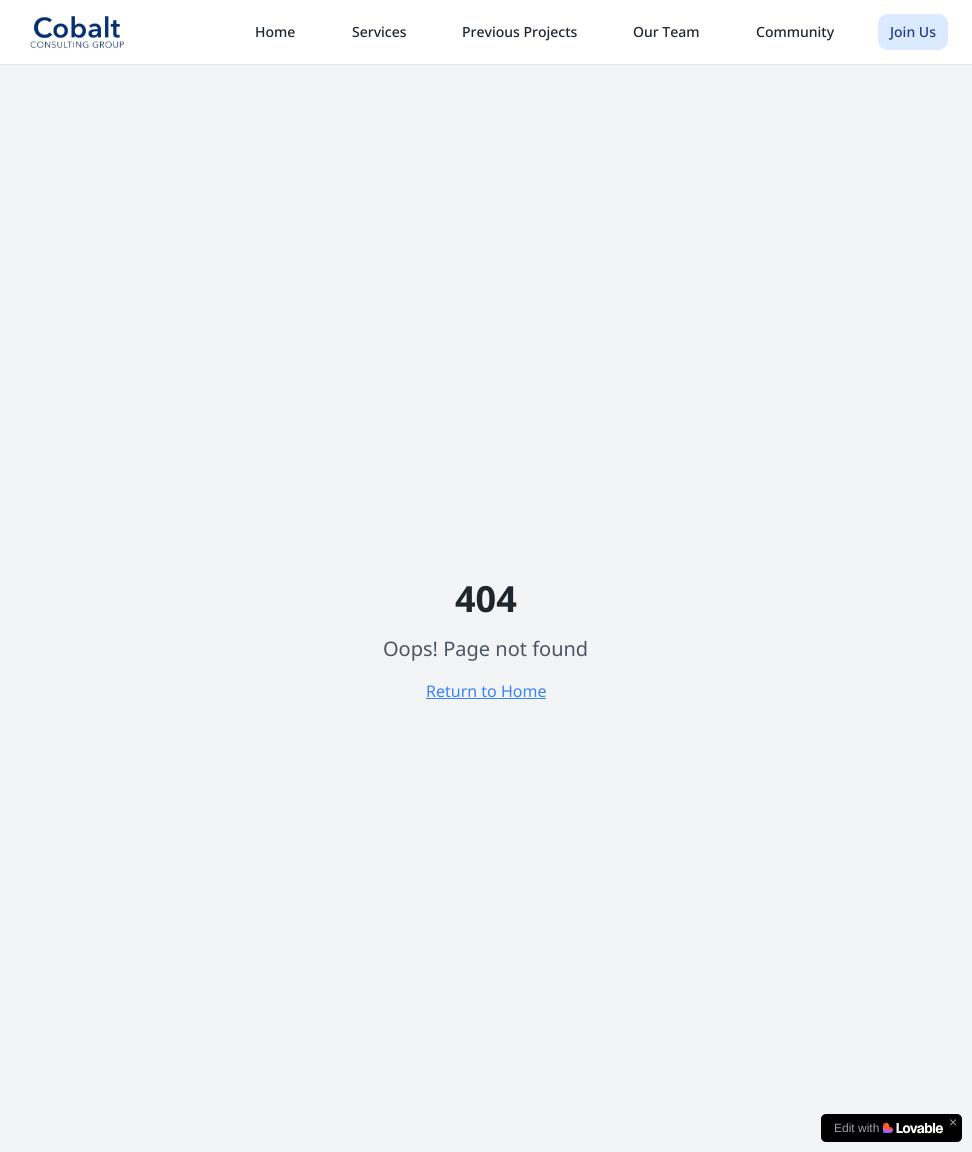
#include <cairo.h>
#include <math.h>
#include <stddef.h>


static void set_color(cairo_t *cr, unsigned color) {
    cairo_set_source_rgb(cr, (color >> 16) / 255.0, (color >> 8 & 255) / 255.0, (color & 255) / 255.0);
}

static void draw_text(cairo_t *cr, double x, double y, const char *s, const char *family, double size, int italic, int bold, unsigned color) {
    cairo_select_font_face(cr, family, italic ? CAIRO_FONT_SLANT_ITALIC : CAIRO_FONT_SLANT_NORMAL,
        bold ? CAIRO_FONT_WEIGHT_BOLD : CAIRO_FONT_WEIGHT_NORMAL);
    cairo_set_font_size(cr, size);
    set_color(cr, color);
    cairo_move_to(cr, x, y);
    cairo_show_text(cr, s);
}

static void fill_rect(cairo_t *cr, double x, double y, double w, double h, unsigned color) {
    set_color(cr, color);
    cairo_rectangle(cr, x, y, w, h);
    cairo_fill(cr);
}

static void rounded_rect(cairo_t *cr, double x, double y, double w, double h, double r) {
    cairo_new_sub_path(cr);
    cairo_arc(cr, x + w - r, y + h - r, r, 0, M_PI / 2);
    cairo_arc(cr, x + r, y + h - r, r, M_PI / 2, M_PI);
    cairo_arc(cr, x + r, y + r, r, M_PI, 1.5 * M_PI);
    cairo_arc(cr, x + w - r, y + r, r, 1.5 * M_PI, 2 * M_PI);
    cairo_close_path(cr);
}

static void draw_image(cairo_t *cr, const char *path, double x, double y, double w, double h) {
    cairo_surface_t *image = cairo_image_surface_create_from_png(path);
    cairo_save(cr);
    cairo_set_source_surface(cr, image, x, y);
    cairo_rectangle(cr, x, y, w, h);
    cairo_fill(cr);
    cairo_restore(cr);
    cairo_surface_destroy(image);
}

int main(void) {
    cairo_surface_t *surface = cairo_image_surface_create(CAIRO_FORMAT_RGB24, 972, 1152);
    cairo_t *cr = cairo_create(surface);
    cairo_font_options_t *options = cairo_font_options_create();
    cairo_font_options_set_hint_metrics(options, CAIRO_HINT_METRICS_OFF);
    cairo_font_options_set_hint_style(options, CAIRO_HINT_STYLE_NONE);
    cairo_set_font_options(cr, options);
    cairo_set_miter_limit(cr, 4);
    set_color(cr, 0xFFFFFF);
    cairo_paint(cr);
    fill_rect(cr, 0, 64, 972, 1, 0xE1E7EF);
    draw_image(cr, "assets/img1.png", 30, 16, 94, 33);
    draw_text(cr, 255, 37, "Home", "Noto Sans Medium", 14, 0, 0, 0x1F262E);
    draw_text(cr, 352, 37, "Services", "Noto Sans Medium", 14, 0, 0, 0x1F262E);
    draw_text(cr, 462, 37, "Previous Projects", "Noto Sans Medium", 14, 0, 0, 0x1F262E);
    draw_text(cr, 633, 37, "Our Team", "Noto Sans Medium", 14, 0, 0, 0x1F262E);
    draw_text(cr, 756, 37, "Community", "Noto Sans Medium", 14, 0, 0, 0x1F262E);
    set_color(cr, 0xDBEAFE);
    rounded_rect(cr, 878, 14, 70, 36, 10);
    cairo_fill(cr);
    draw_text(cr, 890, 37, "Join Us", "Noto Sans Medium", 14, 0, 0, 0x1E3A8A);
    fill_rect(cr, 0, 65, 972, 1087, 0xF3F4F6);
    draw_text(cr, 455, 612, "404", "Noto Sans", 36, 0, 1, 0x1F262E);
    draw_text(cr, 383, 656, "Oops! Page not found", "Noto Sans", 20, 0, 0, 0x4B5563);
    draw_text(cr, 426, 697, "Return to Home", "Noto Sans", 16, 0, 0, 0x3B82F6);
    fill_rect(cr, 426, 698, 120, 1, 0x3B82F6);
    set_color(cr, 0x000000);
    rounded_rect(cr, 821, 1114, 141, 28, 5);
    cairo_fill(cr);
    draw_text(cr, 834, 1132, "Edit with", "Liberation Sans", 12, 0, 0, 0xA1A1AA);
    draw_image(cr, "assets/img2.png", 883, 1122, 60, 12);
    draw_text(cr, 949, 1127, "×", "Liberation Sans", 14, 0, 0, 0xA1A1AA);
    cairo_surface_write_to_png(surface, "output.png");
    cairo_font_options_destroy(options);
    cairo_destroy(cr);
    cairo_surface_destroy(surface);
    return 0;
}
